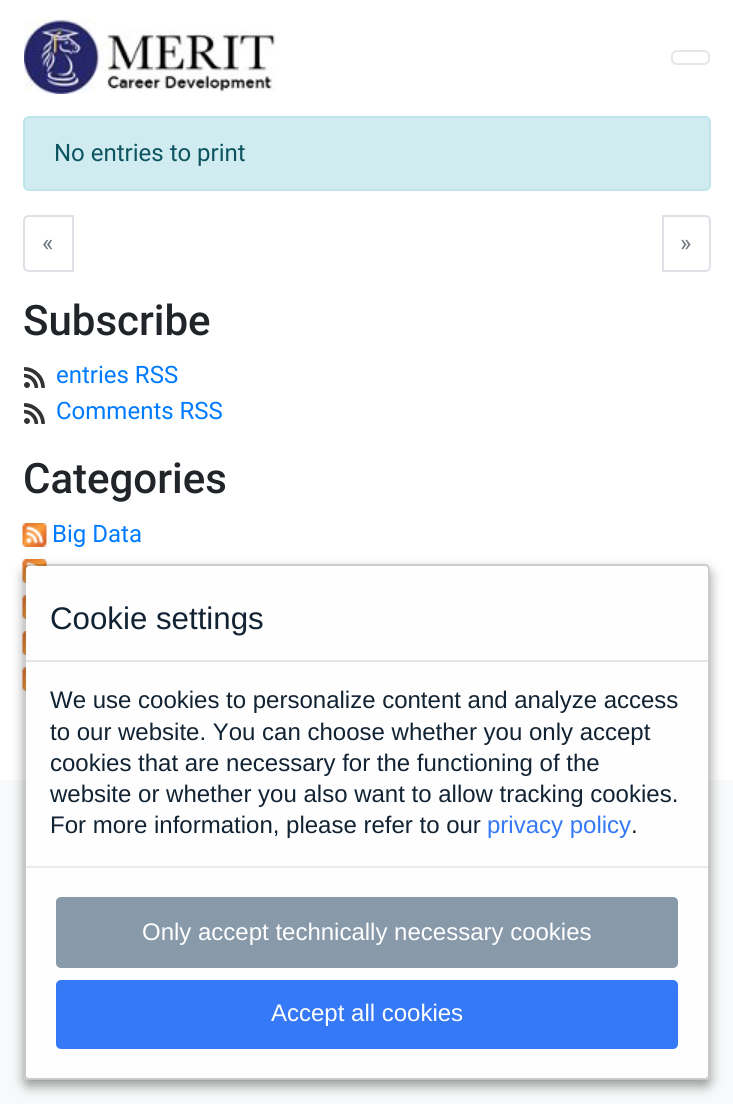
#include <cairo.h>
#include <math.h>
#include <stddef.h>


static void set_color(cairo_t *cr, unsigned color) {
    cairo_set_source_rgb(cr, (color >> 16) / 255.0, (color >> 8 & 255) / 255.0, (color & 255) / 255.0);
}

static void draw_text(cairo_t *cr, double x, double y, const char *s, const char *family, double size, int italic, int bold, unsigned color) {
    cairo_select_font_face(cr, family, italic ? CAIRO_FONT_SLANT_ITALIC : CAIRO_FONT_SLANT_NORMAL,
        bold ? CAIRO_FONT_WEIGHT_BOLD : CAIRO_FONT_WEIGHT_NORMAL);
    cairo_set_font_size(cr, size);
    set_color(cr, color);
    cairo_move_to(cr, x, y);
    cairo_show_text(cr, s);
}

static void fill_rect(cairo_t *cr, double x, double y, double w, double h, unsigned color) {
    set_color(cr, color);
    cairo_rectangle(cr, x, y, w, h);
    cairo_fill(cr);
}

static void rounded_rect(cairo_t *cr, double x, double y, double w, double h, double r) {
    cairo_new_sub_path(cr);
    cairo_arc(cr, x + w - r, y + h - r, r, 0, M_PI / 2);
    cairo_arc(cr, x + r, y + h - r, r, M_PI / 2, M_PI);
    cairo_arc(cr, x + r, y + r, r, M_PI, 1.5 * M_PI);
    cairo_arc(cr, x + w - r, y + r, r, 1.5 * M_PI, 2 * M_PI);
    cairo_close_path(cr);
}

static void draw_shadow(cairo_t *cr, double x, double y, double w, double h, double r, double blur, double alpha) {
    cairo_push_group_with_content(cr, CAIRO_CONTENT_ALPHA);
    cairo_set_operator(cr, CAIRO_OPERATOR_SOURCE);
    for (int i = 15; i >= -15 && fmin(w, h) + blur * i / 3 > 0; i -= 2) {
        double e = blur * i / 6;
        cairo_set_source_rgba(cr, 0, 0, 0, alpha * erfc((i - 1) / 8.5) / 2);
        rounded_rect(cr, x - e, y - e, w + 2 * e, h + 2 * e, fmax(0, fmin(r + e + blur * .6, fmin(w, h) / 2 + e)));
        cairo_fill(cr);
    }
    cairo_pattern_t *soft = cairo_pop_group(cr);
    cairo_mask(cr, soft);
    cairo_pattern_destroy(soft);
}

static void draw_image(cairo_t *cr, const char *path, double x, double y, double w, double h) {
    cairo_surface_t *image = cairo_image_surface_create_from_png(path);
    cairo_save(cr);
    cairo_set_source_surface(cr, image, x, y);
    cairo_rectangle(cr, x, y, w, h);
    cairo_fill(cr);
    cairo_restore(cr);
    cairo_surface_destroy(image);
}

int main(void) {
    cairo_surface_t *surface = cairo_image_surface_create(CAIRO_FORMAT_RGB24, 733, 1104);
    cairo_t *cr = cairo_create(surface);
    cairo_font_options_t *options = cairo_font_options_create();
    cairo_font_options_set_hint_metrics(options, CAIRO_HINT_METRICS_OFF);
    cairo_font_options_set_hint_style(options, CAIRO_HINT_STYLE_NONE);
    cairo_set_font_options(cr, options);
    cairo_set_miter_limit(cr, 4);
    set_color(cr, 0xFFFFFF);
    cairo_paint(cr);
    draw_image(cr, "assets/img1.png", 24, 19, 252, 75);
    rounded_rect(cr, 672, 51, 37, 13, 5);
    set_color(cr, 0xE6E6E6);
    cairo_stroke(cr);
    set_color(cr, 0xD1ECF1);
    rounded_rect(cr, 24, 117, 686, 73, 5);
    cairo_fill_preserve(cr);
    set_color(cr, 0xBEE5EB);
    cairo_stroke(cr);
    draw_text(cr, 54, 161, "No entries to print", "Roboto", 24, 0, 0, 0x0C5460);
    cairo_new_path(cr);
    cairo_move_to(cr, 29, 216);
    cairo_line_to(cr, 73, 216);
    cairo_line_to(cr, 73, 271);
    cairo_line_to(cr, 29, 271);
    cairo_curve_to(cr, 26, 271, 24, 269, 24, 266);
    cairo_line_to(cr, 24, 221);
    cairo_curve_to(cr, 24, 218, 26, 216, 29, 216);
    cairo_close_path(cr);
    set_color(cr, 0xDEE2E6);
    cairo_stroke(cr);
    draw_text(cr, 42, 251, "«", "Roboto", 24, 0, 0, 0x6C757D);
    cairo_new_path(cr);
    cairo_move_to(cr, 663, 216);
    cairo_line_to(cr, 705, 216);
    cairo_curve_to(cr, 708, 216, 710, 218, 710, 221);
    cairo_line_to(cr, 710, 266);
    cairo_curve_to(cr, 710, 269, 708, 271, 705, 271);
    cairo_line_to(cr, 663, 271);
    cairo_close_path(cr);
    set_color(cr, 0xDEE2E6);
    cairo_stroke(cr);
    draw_text(cr, 680, 251, "»", "Roboto", 24, 0, 0, 0x6C757D);
    draw_text(cr, 23, 335, "Subscribe", "Roboto Medium", 42, 0, 0, 0x212529);
    draw_image(cr, "assets/img2.png", 24, 367, 21, 21);
    draw_text(cr, 56, 383, "entries RSS", "Roboto", 24, 0, 0, 0x007BFF);
    draw_image(cr, "assets/img2.png", 24, 403, 21, 21);
    draw_text(cr, 56, 419, "Comments RSS", "Roboto", 24, 0, 0, 0x007BFF);
    draw_text(cr, 23, 493, "Categories", "Roboto Medium", 42, 0, 0, 0x212529);
    draw_image(cr, "assets/img3.png", 22, 523, 25, 24);
    draw_text(cr, 52, 542, "Big Data", "Roboto", 24, 0, 0, 0x007BFF);
    draw_image(cr, "assets/img3.png", 22, 559, 25, 24);
    draw_image(cr, "assets/img4.png", 22, 595, 4, 24);
    draw_image(cr, "assets/img4.png", 22, 631, 4, 24);
    draw_image(cr, "assets/img4.png", 22, 667, 4, 24);
    fill_rect(cr, 0, 780, 733, 324, 0xF8F9FA);
    cairo_save(cr);
    cairo_set_fill_rule(cr, CAIRO_FILL_RULE_EVEN_ODD);
    cairo_new_path(cr);
    cairo_move_to(cr, 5, 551);
    cairo_line_to(cr, 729, 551);
    cairo_line_to(cr, 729, 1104);
    cairo_line_to(cr, 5, 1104);
    cairo_close_path(cr);
    cairo_move_to(cr, 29, 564);
    cairo_line_to(cr, 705, 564);
    cairo_curve_to(cr, 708, 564, 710, 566, 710, 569);
    cairo_line_to(cr, 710, 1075);
    cairo_curve_to(cr, 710, 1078, 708, 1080, 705, 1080);
    cairo_line_to(cr, 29, 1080);
    cairo_curve_to(cr, 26, 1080, 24, 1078, 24, 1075);
    cairo_line_to(cr, 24, 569);
    cairo_curve_to(cr, 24, 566, 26, 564, 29, 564);
    cairo_close_path(cr);
    cairo_clip(cr);
    set_color(cr, 0x000000);
    draw_shadow(cr, 24, 570, 686, 516, 5, 6, 0.4);
    cairo_restore(cr);
    set_color(cr, 0xFEFEFE);
    rounded_rect(cr, 26, 566, 682, 513, 3);
    cairo_fill(cr);
    rounded_rect(cr, 25, 565, 684, 514, 4);
    cairo_set_source_rgba(cr, 0, 0, 0, 0.2);
    cairo_stroke(cr);
    fill_rect(cr, 26, 660, 682, 2, 0xE5E5E5);
    draw_text(cr, 50, 629, "Cookie settings", "Liberation Sans", 31.25, 0, 0, 0x112233);
    draw_text(cr, 50, 708, "We use cookies to personalize content and analyze access", "Liberation Sans", 24, 0, 0, 0x112233);
    draw_text(cr, 50, 740, "to our website. You can choose whether you only accept", "Liberation Sans", 24, 0, 0, 0x112233);
    draw_text(cr, 50, 771, "cookies that are necessary for the functioning of the", "Liberation Sans", 24, 0, 0, 0x112233);
    draw_text(cr, 50, 802, "website or whether you also want to allow tracking cookies.", "Liberation Sans", 24, 0, 0, 0x112233);
    draw_text(cr, 50, 833, "For more information, please refer to our", "Liberation Sans", 24, 0, 0, 0x112233);
    draw_text(cr, 487, 833, "privacy policy", "Liberation Sans", 24, 0, 0, 0x3579F6);
    draw_text(cr, 631, 833, ".", "Liberation Sans", 24, 0, 0, 0x112233);
    fill_rect(cr, 26, 866, 682, 2, 0xE9ECEF);
    set_color(cr, 0x8899AA);
    rounded_rect(cr, 56, 897, 622, 71, 5);
    cairo_fill(cr);
    draw_text(cr, 142, 940, "Only accept technically necessary cookies", "Liberation Sans", 24, 0, 0, 0xFFFFFF);
    set_color(cr, 0x3579F6);
    rounded_rect(cr, 56, 980, 622, 69, 5);
    cairo_fill(cr);
    draw_text(cr, 271, 1021, "Accept all cookies", "Liberation Sans", 24, 0, 0, 0xFFFFFF);
    cairo_surface_write_to_png(surface, "output.png");
    cairo_font_options_destroy(options);
    cairo_destroy(cr);
    cairo_surface_destroy(surface);
    return 0;
}
